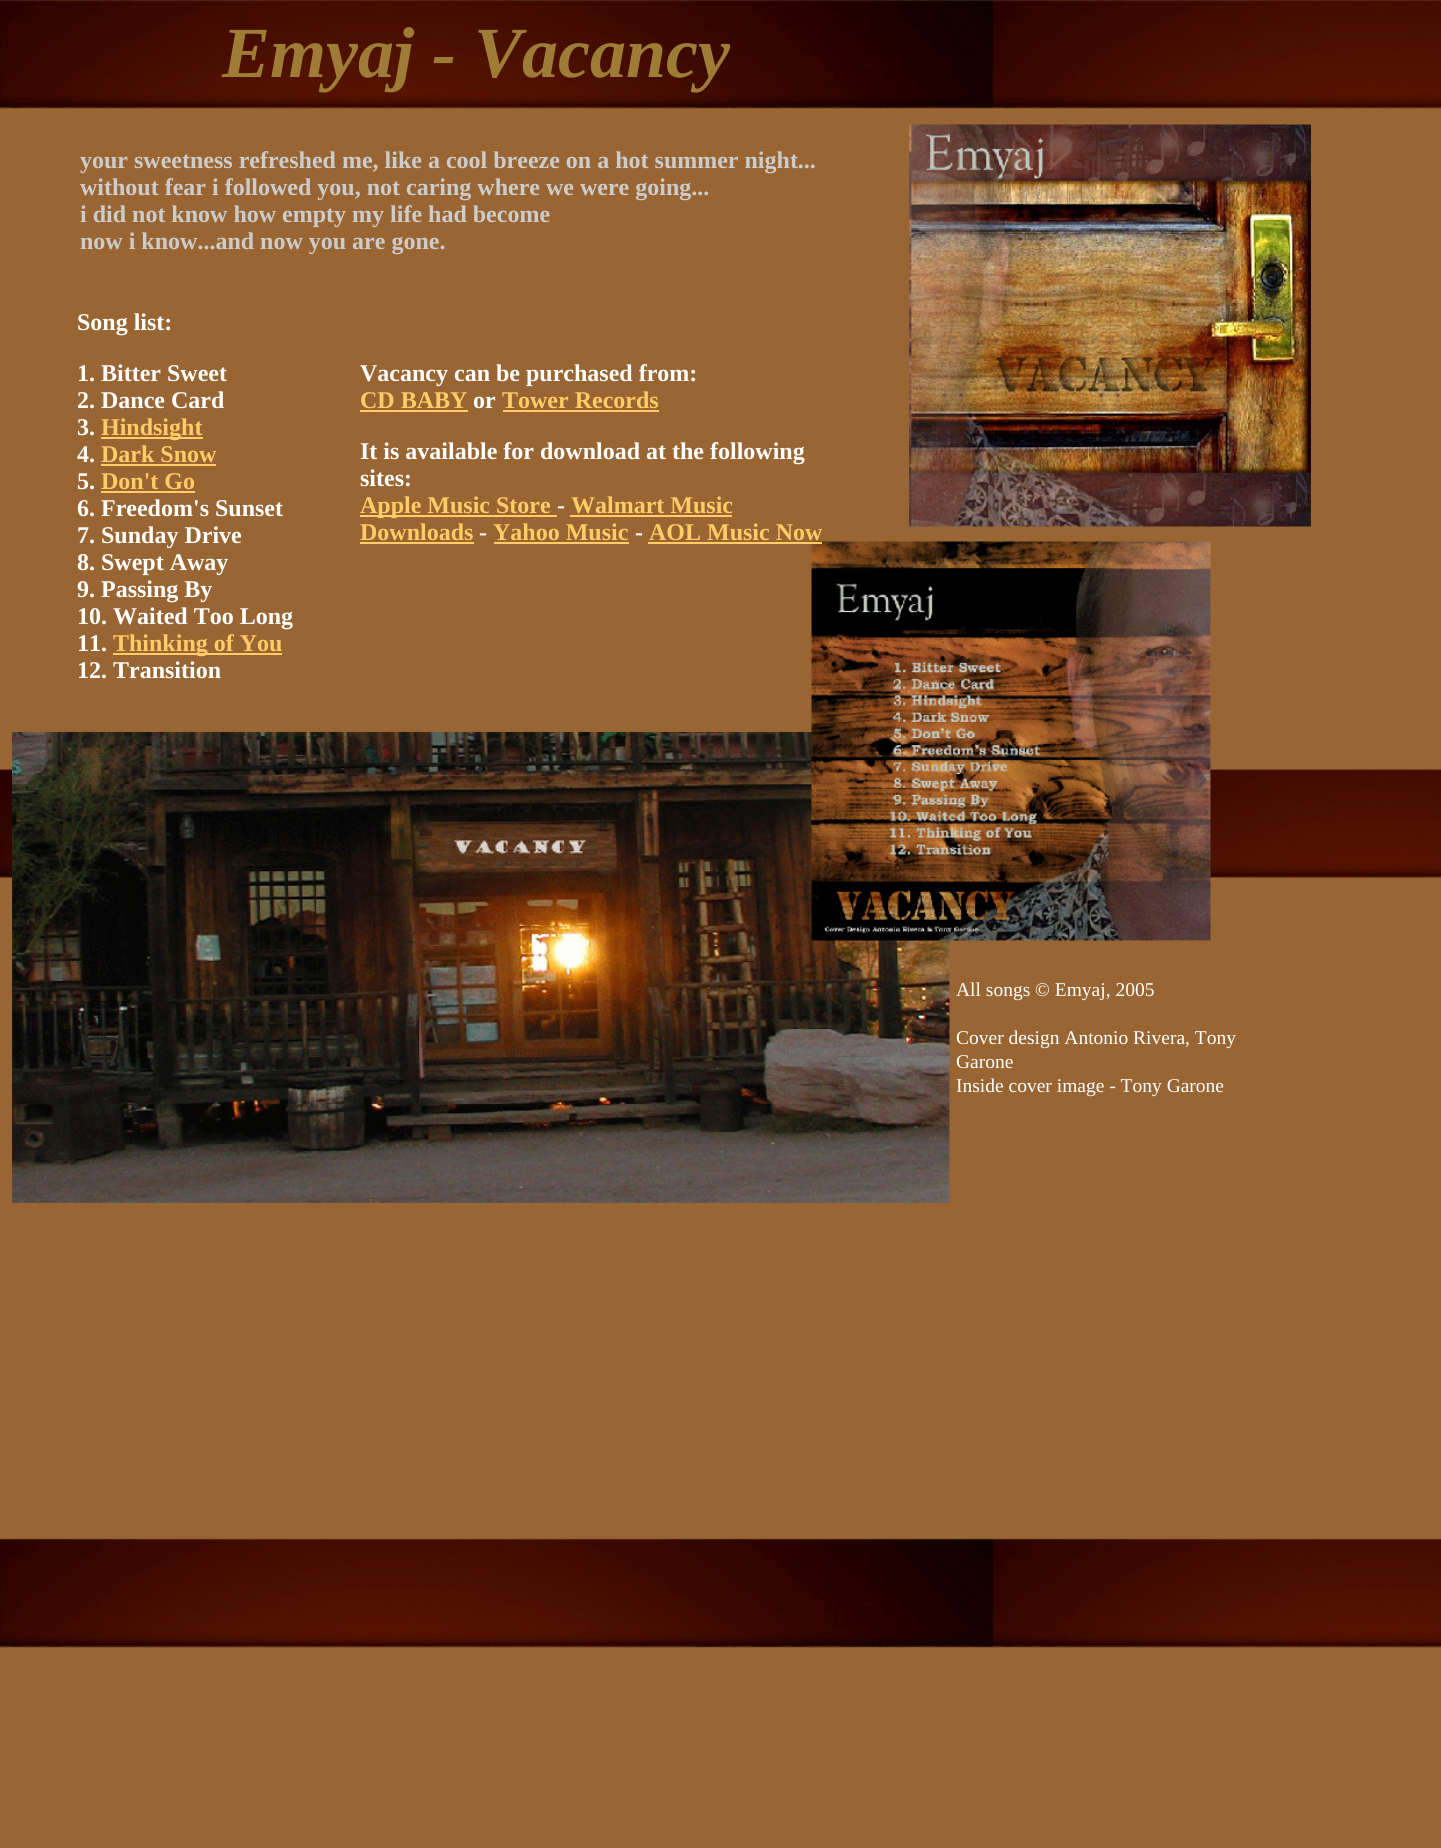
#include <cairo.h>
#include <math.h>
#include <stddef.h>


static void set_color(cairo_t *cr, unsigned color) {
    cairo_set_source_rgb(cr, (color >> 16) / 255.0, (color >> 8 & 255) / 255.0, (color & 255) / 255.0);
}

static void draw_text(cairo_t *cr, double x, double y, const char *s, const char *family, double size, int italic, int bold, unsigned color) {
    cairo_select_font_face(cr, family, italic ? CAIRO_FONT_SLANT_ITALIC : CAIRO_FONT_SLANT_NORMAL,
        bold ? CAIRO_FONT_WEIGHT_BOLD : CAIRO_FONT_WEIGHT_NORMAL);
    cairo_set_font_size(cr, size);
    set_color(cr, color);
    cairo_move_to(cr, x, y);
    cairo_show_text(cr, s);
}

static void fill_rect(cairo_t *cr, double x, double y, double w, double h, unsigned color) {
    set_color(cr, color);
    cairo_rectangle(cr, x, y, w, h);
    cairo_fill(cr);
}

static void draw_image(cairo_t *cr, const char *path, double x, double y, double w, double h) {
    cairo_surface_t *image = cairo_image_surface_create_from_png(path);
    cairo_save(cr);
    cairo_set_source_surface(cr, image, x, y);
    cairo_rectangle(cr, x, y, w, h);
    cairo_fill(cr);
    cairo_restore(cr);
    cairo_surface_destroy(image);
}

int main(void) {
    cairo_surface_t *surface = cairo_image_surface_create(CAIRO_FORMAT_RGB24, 1441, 1848);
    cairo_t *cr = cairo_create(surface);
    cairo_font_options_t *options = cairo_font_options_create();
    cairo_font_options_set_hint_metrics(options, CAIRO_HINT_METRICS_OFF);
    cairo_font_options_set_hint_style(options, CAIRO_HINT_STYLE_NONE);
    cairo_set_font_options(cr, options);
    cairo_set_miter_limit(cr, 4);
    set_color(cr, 0x996633);
    cairo_paint(cr);
    draw_image(cr, "assets/img1.png", 0, 0, 1441, 1648);
    draw_text(cr, 222, 77, "Emyaj - Vacancy", "Liberation Serif", 72, 1, 1, 0x9F7C36);
    draw_text(cr, 80, 168, "your sweetness refreshed me, like a cool breeze on a hot summer night...", "Liberation Serif", 24, 0, 1, 0xCCCCCC);
    draw_text(cr, 80, 195, "without fear i followed you, not caring where we were going...", "Liberation Serif", 24, 0, 1, 0xCCCCCC);
    draw_text(cr, 80, 222, "i did not know how empty my life had become", "Liberation Serif", 24, 0, 1, 0xCCCCCC);
    draw_text(cr, 80, 249, "now i know...and now you are gone.", "Liberation Serif", 24, 0, 1, 0xCCCCCC);
    draw_image(cr, "assets/img2.png", 909, 124, 402, 403);
    draw_text(cr, 77, 330, "Song list:", "Liberation Serif", 24, 0, 1, 0xFFFFFF);
    draw_text(cr, 77, 381, "1. Bitter Sweet", "Liberation Serif", 24, 0, 1, 0xFFFFFF);
    draw_text(cr, 77, 408, "2. Dance Card", "Liberation Serif", 24, 0, 1, 0xFFFFFF);
    draw_text(cr, 77, 435, "3.", "Liberation Serif", 24, 0, 1, 0xFFFFFF);
    fill_rect(cr, 101, 437, 102, 2, 0xFFCC66);
    draw_text(cr, 101, 435, "Hindsight", "Liberation Serif", 24, 0, 1, 0xFFCC66);
    draw_text(cr, 77, 462, "4.", "Liberation Serif", 24, 0, 1, 0xFFFFFF);
    draw_text(cr, 101, 462, "Dark Snow", "Liberation Serif", 24, 0, 1, 0xFFCC66);
    fill_rect(cr, 101, 464, 115, 2, 0xFFCC66);
    draw_text(cr, 77, 489, "5.", "Liberation Serif", 24, 0, 1, 0xFFFFFF);
    draw_text(cr, 101, 489, "Don't Go", "Liberation Serif", 24, 0, 1, 0xFFCC66);
    fill_rect(cr, 101, 491, 94, 2, 0xFFCC66);
    draw_text(cr, 77, 516, "6. Freedom's Sunset", "Liberation Serif", 24, 0, 1, 0xFFFFFF);
    draw_text(cr, 77, 543, "7. Sunday Drive", "Liberation Serif", 24, 0, 1, 0xFFFFFF);
    draw_text(cr, 77, 570, "8. Swept Away", "Liberation Serif", 24, 0, 1, 0xFFFFFF);
    draw_text(cr, 77, 597, "9. Passing By", "Liberation Serif", 24, 0, 1, 0xFFFFFF);
    draw_text(cr, 77, 624, "10. Waited Too Long", "Liberation Serif", 24, 0, 1, 0xFFFFFF);
    draw_text(cr, 77, 651, "11.", "Liberation Serif", 24, 0, 1, 0xFFFFFF);
    fill_rect(cr, 113, 653, 169, 2, 0xFFCC66);
    draw_text(cr, 113, 651, "Thinking of You", "Liberation Serif", 24, 0, 1, 0xFFCC66);
    draw_text(cr, 77, 678, "12. Transition", "Liberation Serif", 24, 0, 1, 0xFFFFFF);
    draw_text(cr, 360, 381, "Vacancy can be purchased from:", "Liberation Serif", 24, 0, 1, 0xFFFFFF);
    draw_text(cr, 360, 408, "CD BABY", "Liberation Serif", 24, 0, 1, 0xFFCC66);
    fill_rect(cr, 360, 410, 108, 2, 0xFFCC66);
    draw_text(cr, 473, 408, "or", "Liberation Serif", 24, 0, 1, 0xFFFFFF);
    draw_text(cr, 502, 408, "Tower Records", "Liberation Serif", 24, 0, 1, 0xFFCC66);
    fill_rect(cr, 503, 410, 156, 2, 0xFFCC66);
    draw_text(cr, 360, 459, "It is available for download at the following", "Liberation Serif", 24, 0, 1, 0xFFFFFF);
    draw_text(cr, 360, 486, "sites:", "Liberation Serif", 24, 0, 1, 0xFFFFFF);
    fill_rect(cr, 360, 515, 197, 2, 0xFFCC66);
    draw_text(cr, 360, 513, "Apple Music Store", "Liberation Serif", 24, 0, 1, 0xFFCC66);
    draw_text(cr, 557, 513, "-", "Liberation Serif", 24, 0, 1, 0xFFFFFF);
    draw_text(cr, 571, 513, "Walmart Music", "Liberation Serif", 24, 0, 1, 0xFFCC66);
    fill_rect(cr, 570, 515, 162, 2, 0xFFCC66);
    draw_text(cr, 360, 540, "Downloads", "Liberation Serif", 24, 0, 1, 0xFFCC66);
    fill_rect(cr, 360, 542, 114, 2, 0xFFCC66);
    draw_text(cr, 479, 540, "-", "Liberation Serif", 24, 0, 1, 0xFFFFFF);
    draw_text(cr, 493, 540, "Yahoo Music", "Liberation Serif", 24, 0, 1, 0xFFCC66);
    fill_rect(cr, 494, 542, 135, 2, 0xFFCC66);
    draw_text(cr, 635, 540, "-", "Liberation Serif", 24, 0, 1, 0xFFFFFF);
    draw_text(cr, 649, 540, "AOL Music Now", "Liberation Serif", 24, 0, 1, 0xFFCC66);
    draw_image(cr, "assets/img3.png", 12, 732, 938, 471);
    draw_image(cr, "assets/img4.png", 811, 541, 400, 400);
    fill_rect(cr, 648, 542, 174, 2, 0xFFCC66);
    draw_text(cr, 956, 996, "All songs © Emyaj, 2005", "Liberation Serif", 19.5, 0, 0, 0xFFFFFF);
    draw_text(cr, 956, 1044, "Cover design Antonio Rivera, Tony", "Liberation Serif", 19.5, 0, 0, 0xFFFFFF);
    draw_text(cr, 956, 1068, "Garone", "Liberation Serif", 19.5, 0, 0, 0xFFFFFF);
    draw_text(cr, 956, 1092, "Inside cover image - Tony Garone", "Liberation Serif", 19.5, 0, 0, 0xFFFFFF);
    cairo_surface_write_to_png(surface, "output.png");
    cairo_font_options_destroy(options);
    cairo_destroy(cr);
    cairo_surface_destroy(surface);
    return 0;
}
